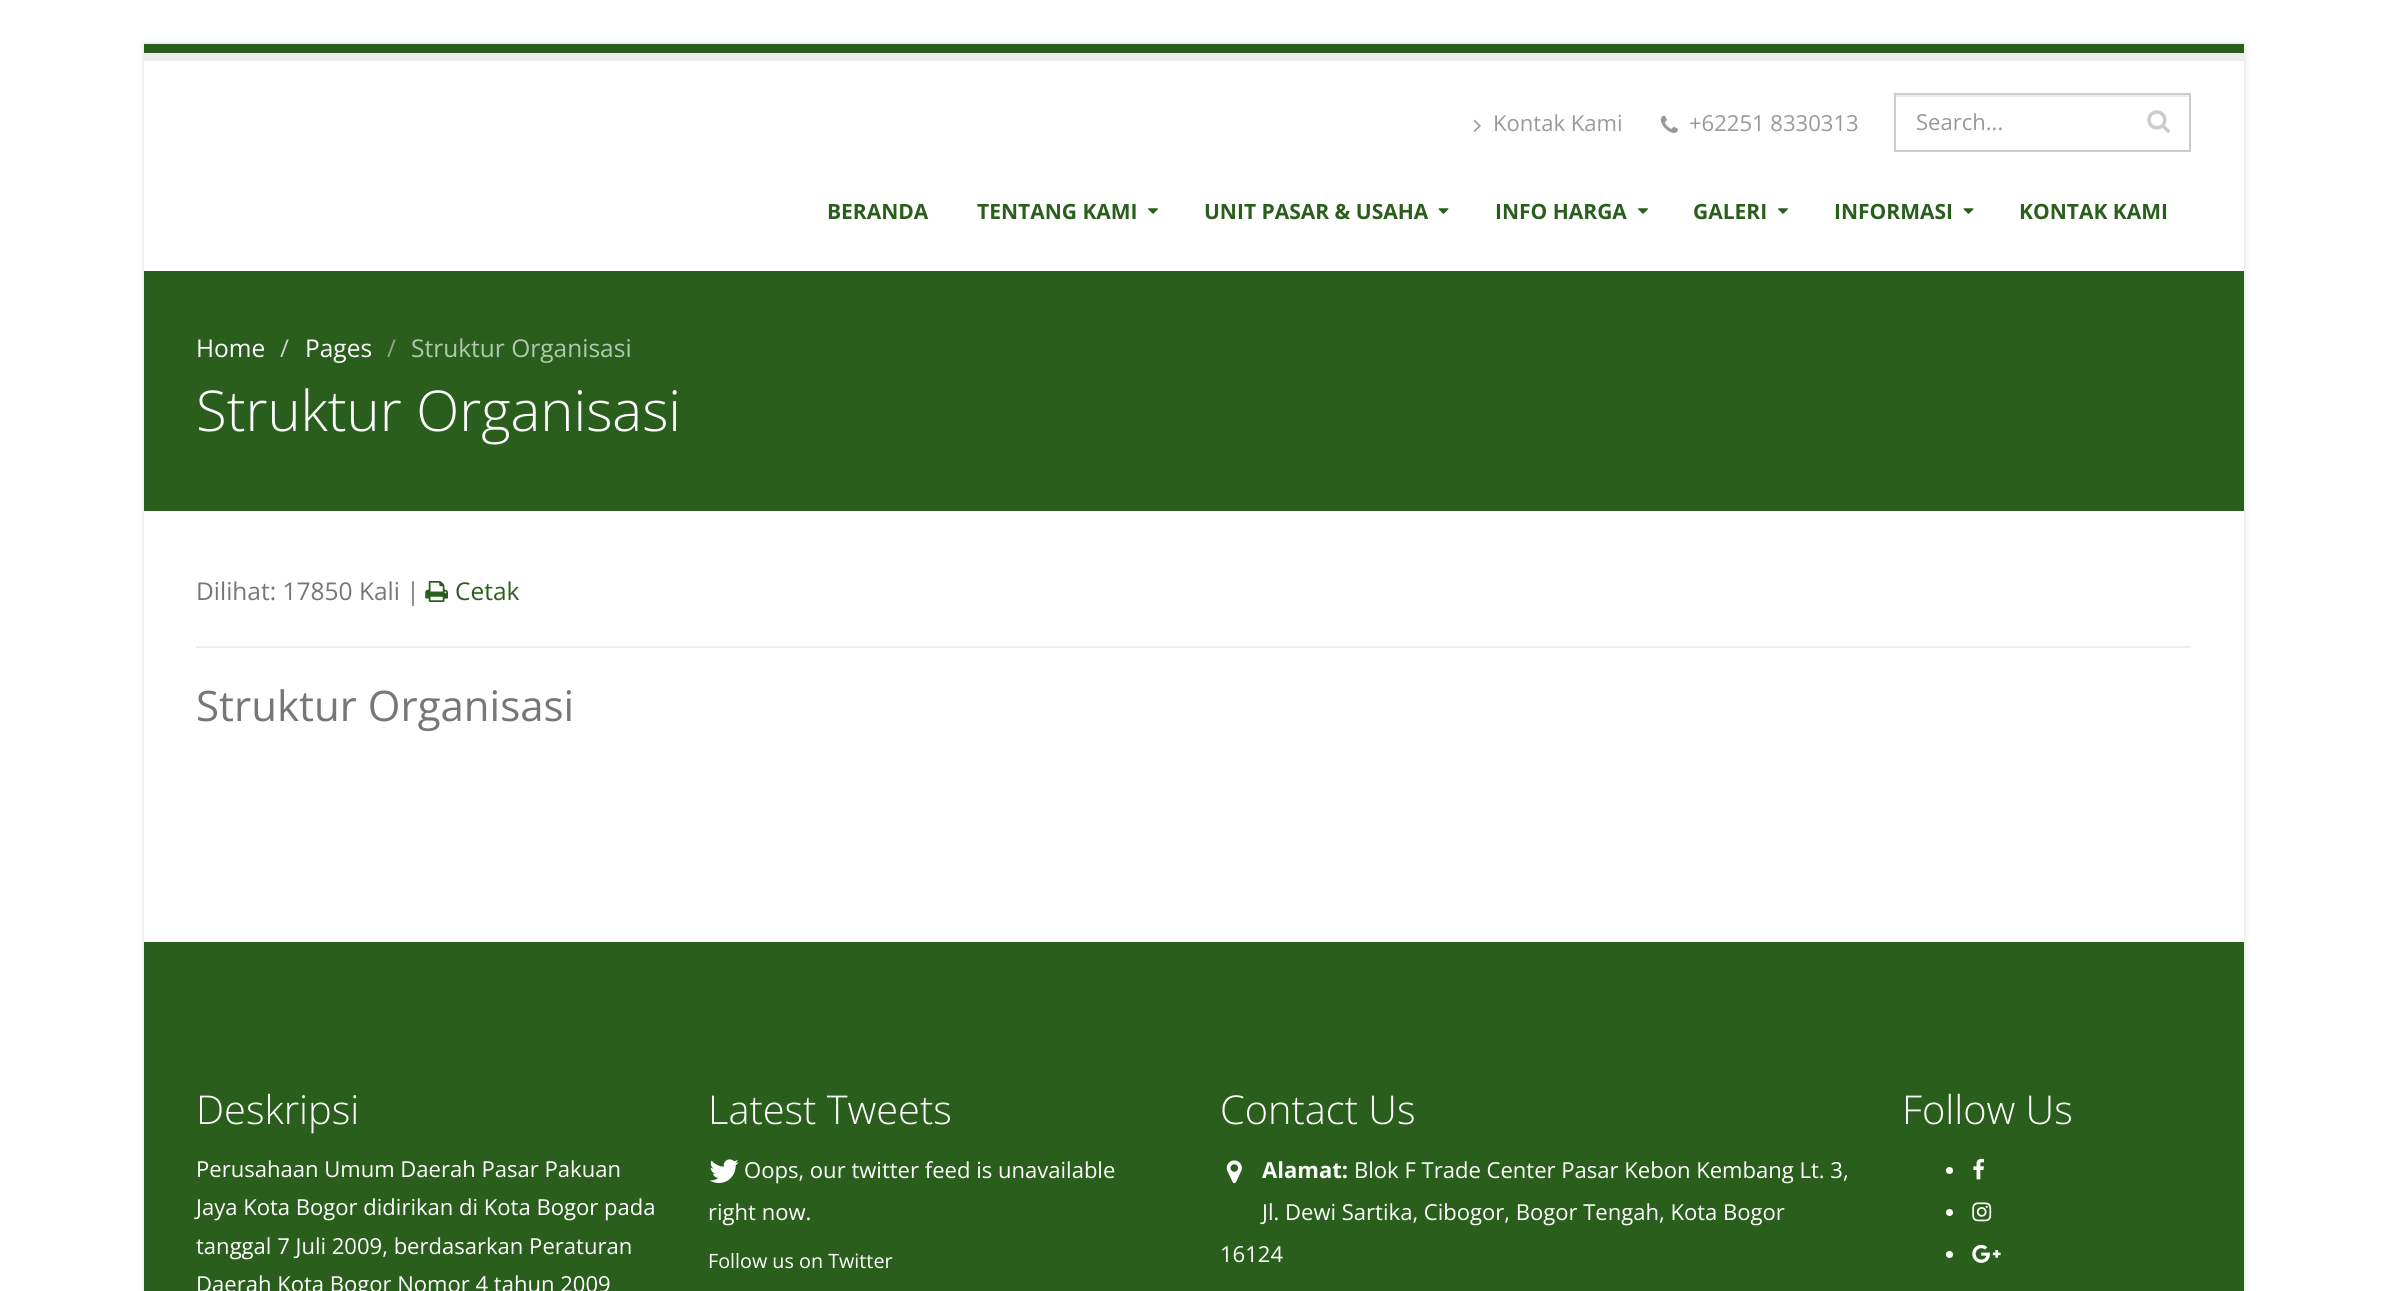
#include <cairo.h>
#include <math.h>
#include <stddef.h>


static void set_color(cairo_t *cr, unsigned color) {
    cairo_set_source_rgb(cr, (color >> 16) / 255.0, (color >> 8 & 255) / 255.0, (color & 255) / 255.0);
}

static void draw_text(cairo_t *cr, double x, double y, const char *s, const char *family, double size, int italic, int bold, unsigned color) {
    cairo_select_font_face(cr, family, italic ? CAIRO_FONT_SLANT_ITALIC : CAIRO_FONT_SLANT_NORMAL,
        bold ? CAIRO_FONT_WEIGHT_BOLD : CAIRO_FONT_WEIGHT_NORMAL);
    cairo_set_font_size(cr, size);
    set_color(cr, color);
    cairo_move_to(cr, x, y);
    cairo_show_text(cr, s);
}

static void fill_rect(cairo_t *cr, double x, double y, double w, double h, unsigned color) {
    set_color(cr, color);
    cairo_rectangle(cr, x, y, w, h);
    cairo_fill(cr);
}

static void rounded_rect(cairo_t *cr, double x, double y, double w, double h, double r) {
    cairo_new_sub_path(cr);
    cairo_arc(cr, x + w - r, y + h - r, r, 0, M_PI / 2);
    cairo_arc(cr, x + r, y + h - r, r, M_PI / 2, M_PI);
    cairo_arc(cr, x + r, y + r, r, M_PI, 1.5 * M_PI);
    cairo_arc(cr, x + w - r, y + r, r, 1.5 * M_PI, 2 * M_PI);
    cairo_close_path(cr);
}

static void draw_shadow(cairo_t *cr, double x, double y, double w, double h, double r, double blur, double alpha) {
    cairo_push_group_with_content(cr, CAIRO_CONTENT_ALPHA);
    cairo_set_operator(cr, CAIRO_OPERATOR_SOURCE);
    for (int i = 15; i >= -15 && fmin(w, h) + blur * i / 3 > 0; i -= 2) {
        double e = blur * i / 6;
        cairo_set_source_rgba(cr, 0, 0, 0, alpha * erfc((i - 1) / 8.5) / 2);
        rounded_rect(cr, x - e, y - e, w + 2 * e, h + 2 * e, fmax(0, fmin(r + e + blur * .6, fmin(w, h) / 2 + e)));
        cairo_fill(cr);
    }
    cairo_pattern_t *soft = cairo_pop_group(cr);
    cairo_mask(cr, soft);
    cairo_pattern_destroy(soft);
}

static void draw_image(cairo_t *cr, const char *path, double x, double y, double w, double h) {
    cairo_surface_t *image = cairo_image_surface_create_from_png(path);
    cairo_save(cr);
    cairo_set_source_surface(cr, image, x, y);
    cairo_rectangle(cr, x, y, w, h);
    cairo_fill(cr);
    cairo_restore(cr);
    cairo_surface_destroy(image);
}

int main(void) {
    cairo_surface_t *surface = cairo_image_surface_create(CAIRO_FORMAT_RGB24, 2387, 1291);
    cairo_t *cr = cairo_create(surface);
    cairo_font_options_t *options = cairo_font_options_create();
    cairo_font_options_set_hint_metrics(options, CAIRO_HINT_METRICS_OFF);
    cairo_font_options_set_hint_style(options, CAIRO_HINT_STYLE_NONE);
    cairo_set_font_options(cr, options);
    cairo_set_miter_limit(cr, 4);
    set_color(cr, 0xFFFFFF);
    cairo_paint(cr);
    set_color(cr, 0x000000);
    draw_shadow(cr, 144, 44, 2100, 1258, 0, 3.5, 0.15);
    fill_rect(cr, 144, 61, 2100, 881, 0xFFFFFF);
    fill_rect(cr, 144, 44, 2100, 9, 0x2A5E1C);
    fill_rect(cr, 144, 53, 2100, 8, 0xEDEDED);
    draw_image(cr, "assets/img1.png", 1473, 119, 8, 13);
    draw_text(cr, 1493, 131, "Kontak Kami", "Open Sans", 22.05, 0, 0, 0x999999);
    draw_image(cr, "assets/img2.png", 1660, 115, 18, 18);
    draw_text(cr, 1689, 131, "+62251 8330313", "Open Sans", 22.05, 0, 0, 0x999999);
    fill_rect(cr, 1895, 95, 294, 2, 0xECECEC);
    cairo_rectangle(cr, 1895, 94, 295, 57);
    set_color(cr, 0xCCCCCC);
    cairo_stroke(cr);
    draw_text(cr, 1916, 130, "Search...", "Open Sans", 22.05, 0, 0, 0x999999);
    draw_image(cr, "assets/img3.png", 2147, 110, 23, 23);
    draw_text(cr, 827, 219, "BERANDA", "Open Sans", 21, 0, 1, 0x2A5E1C);
    draw_text(cr, 977, 219, "TENTANG KAMI", "Open Sans", 21, 0, 1, 0x2A5E1C);
    draw_image(cr, "assets/img4.png", 1148, 208, 10, 6);
    draw_text(cr, 1204, 219, "UNIT PASAR & USAHA", "Open Sans", 21, 0, 1, 0x2A5E1C);
    draw_image(cr, "assets/img5.png", 1438, 208, 11, 6);
    draw_text(cr, 1495, 219, "INFO HARGA", "Open Sans", 21, 0, 1, 0x2A5E1C);
    draw_image(cr, "assets/img4.png", 1638, 208, 10, 6);
    draw_text(cr, 1693, 219, "GALERI", "Open Sans", 21, 0, 1, 0x2A5E1C);
    draw_image(cr, "assets/img4.png", 1778, 208, 10, 6);
    draw_text(cr, 1834, 219, "INFORMASI", "Open Sans", 21, 0, 1, 0x2A5E1C);
    draw_image(cr, "assets/img5.png", 1963, 208, 11, 6);
    draw_text(cr, 2019, 219, "KONTAK KAMI", "Open Sans", 21, 0, 1, 0x2A5E1C);
    fill_rect(cr, 144, 271, 2100, 240, 0x2A5E1C);
    draw_text(cr, 196, 357, "Home", "Open Sans", 24.5, 0, 0, 0xFFFFFF);
    draw_text(cr, 280, 357, "/", "Open Sans", 24.5, 0, 0, 0xCCCCCC);
    draw_text(cr, 305, 357, "Pages", "Open Sans", 24.5, 0, 0, 0xFFFFFF);
    draw_text(cr, 387, 357, "/", "Open Sans", 24.5, 0, 0, 0x93A68E);
    draw_text(cr, 411, 357, "Struktur Organisasi", "Open Sans", 24.5, 0, 0, 0xB4C7B0);
    draw_text(cr, 196, 431, "Struktur Organisasi", "Open Sans Light", 56.25, 0, 0, 0xFFFFFF);
    draw_text(cr, 196, 600, "Dilihat: 17850 Kali |", "Open Sans", 24.5, 0, 0, 0x777777);
    draw_image(cr, "assets/img6.png", 425, 581, 23, 21);
    draw_text(cr, 455, 600, "Cetak", "Open Sans", 24.5, 0, 0, 0x2A5E1C);
    fill_rect(cr, 196, 646, 1995, 2, 0xEEEEEE);
    draw_text(cr, 196, 721, "Struktur Organisasi", "Open Sans", 42, 0, 0, 0x777777);
    fill_rect(cr, 144, 942, 2100, 349, 0x2A5E1C);
    draw_text(cr, 196, 1124, "Deskripsi", "Open Sans Light", 39.75, 0, 0, 0xFFFFFF);
    draw_text(cr, 196, 1177, "Perusahaan Umum Daerah Pasar Pakuan", "Open Sans", 22.05, 0, 0, 0xFFFFFF);
    draw_text(cr, 196, 1215, "Jaya Kota Bogor didirikan di Kota Bogor pada", "Open Sans", 22.05, 0, 0, 0xFFFFFF);
    draw_text(cr, 196, 1254, "tanggal 7 Juli 2009, berdasarkan Peraturan", "Open Sans", 22.05, 0, 0, 0xFFFFFF);
    draw_text(cr, 196, 1292, "Daerah Kota Bogor Nomor 4 tahun 2009", "Open Sans", 22.05, 0, 0, 0xFFFFFF);
    draw_text(cr, 708, 1124, "Latest Tweets", "Open Sans Light", 39.75, 0, 0, 0xFFFFFF);
    draw_image(cr, "assets/img7.png", 709, 1159, 30, 24);
    draw_text(cr, 744, 1178, "Oops, our twitter feed is unavailable", "Open Sans", 22.05, 0, 0, 0xFFFFFF);
    draw_text(cr, 708, 1220, "right now.", "Open Sans", 22.05, 0, 0, 0xFFFFFF);
    draw_text(cr, 708, 1268, "Follow us on Twitter", "Open Sans", 19.75, 0, 0, 0xFFFFFF);
    draw_text(cr, 1220, 1124, "Contact Us", "Open Sans Light", 39.75, 0, 0, 0xFFFFFF);
    draw_image(cr, "assets/img8.png", 1226, 1160, 16, 24);
    draw_text(cr, 1262, 1178, "Alamat:", "Open Sans", 22.05, 0, 1, 0xFFFFFF);
    draw_text(cr, 1354, 1178, "Blok F Trade Center Pasar Kebon Kembang Lt. 3,", "Open Sans", 22.05, 0, 0, 0xFFFFFF);
    draw_text(cr, 1262, 1220, "Jl. Dewi Sartika, Cibogor, Bogor Tengah, Kota Bogor", "Open Sans", 22.05, 0, 0, 0xFFFFFF);
    draw_text(cr, 1220, 1262, "16124", "Open Sans", 22.05, 0, 0, 0xFFFFFF);
    draw_text(cr, 1902, 1124, "Follow Us", "Open Sans Light", 39.75, 0, 0, 0xFFFFFF);
    cairo_new_path(cr);
    cairo_arc(cr, 1949.5, 1170.5, 3.5, 0, 2 * M_PI);
    cairo_fill(cr);
    draw_image(cr, "assets/img9.png", 1973, 1158, 12, 22);
    cairo_arc(cr, 1949.5, 1212.5, 3.5, 0, 2 * M_PI);
    cairo_fill(cr);
    draw_image(cr, "assets/img10.png", 1972, 1202, 20, 20);
    cairo_arc(cr, 1949.5, 1254.5, 3.5, 0, 2 * M_PI);
    cairo_fill(cr);
    draw_image(cr, "assets/img11.png", 1972, 1244, 29, 19);
    cairo_surface_write_to_png(surface, "output.png");
    cairo_font_options_destroy(options);
    cairo_destroy(cr);
    cairo_surface_destroy(surface);
    return 0;
}
